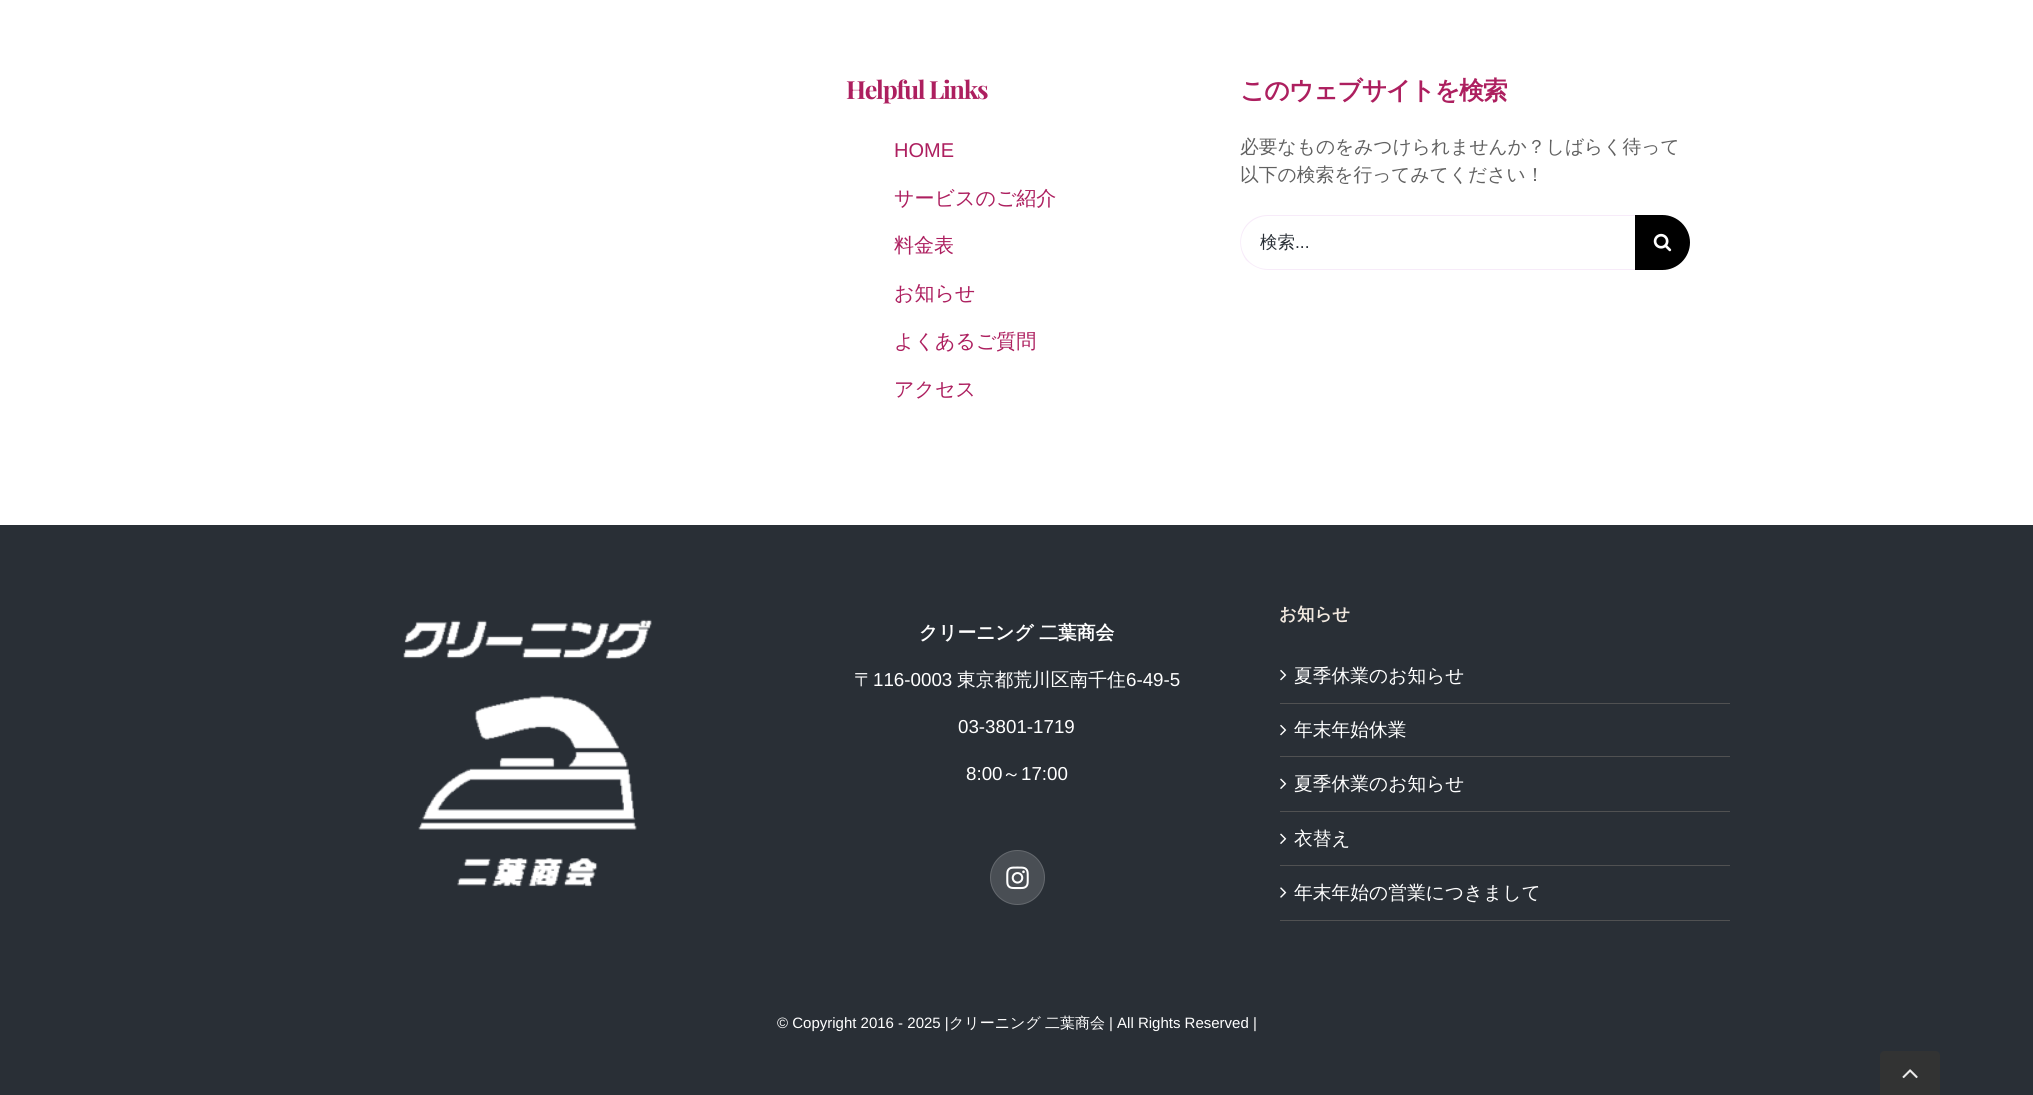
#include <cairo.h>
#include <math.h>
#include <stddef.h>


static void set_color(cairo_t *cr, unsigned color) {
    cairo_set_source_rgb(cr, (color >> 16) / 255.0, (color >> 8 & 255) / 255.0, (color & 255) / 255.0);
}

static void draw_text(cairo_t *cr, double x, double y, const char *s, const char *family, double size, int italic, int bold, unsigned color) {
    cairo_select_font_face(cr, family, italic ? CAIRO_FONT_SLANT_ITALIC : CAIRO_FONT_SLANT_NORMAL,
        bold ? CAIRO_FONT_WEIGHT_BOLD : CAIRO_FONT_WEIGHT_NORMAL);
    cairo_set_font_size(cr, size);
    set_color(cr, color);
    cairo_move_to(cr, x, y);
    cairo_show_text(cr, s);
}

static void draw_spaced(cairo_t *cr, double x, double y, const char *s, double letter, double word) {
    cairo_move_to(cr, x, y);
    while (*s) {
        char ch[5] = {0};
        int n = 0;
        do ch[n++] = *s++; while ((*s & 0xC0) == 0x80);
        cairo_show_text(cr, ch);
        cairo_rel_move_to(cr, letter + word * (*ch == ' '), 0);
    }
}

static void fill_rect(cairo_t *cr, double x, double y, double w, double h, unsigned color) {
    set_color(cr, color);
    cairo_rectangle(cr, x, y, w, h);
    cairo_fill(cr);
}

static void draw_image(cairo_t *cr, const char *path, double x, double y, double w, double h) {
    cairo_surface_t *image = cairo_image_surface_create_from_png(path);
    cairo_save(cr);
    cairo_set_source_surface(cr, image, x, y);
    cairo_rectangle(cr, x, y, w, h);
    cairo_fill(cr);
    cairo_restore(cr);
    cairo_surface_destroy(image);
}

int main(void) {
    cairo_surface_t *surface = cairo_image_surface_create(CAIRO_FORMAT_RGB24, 2033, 1095);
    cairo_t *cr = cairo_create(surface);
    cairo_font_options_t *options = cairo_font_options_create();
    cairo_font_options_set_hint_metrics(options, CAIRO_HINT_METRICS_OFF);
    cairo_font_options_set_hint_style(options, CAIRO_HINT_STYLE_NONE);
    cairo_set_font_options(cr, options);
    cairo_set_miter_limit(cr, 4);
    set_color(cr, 0xFFFFFF);
    cairo_paint(cr);
    cairo_select_font_face(cr, "Playfair Display", CAIRO_FONT_SLANT_NORMAL, CAIRO_FONT_WEIGHT_BOLD);
    cairo_set_font_size(cr, 25);
    set_color(cr, 0xAD1F5F);
    draw_spaced(cr, 846, 99, "Helpful Links", -1.25, 0);
    draw_text(cr, 894, 157, "HOME", "Liberation Sans", 20, 0, 0, 0xAD1F5F);
    draw_text(cr, 894, 205, "サービスのご紹介", "WenQuanYi Zen Hei Medium", 20, 0, 0, 0xAD1F5F);
    draw_text(cr, 894, 252, "料金表", "WenQuanYi Zen Hei Medium", 20, 0, 0, 0xAD1F5F);
    draw_text(cr, 894, 300, "お知らせ", "WenQuanYi Zen Hei Medium", 20, 0, 0, 0xAD1F5F);
    draw_text(cr, 894, 348, "よくあるご質問", "WenQuanYi Zen Hei Medium", 20, 0, 0, 0xAD1F5F);
    draw_text(cr, 894, 396, "アクセス", "WenQuanYi Zen Hei Medium", 20, 0, 0, 0xAD1F5F);
    cairo_select_font_face(cr, "WenQuanYi Zen Hei", CAIRO_FONT_SLANT_NORMAL, CAIRO_FONT_WEIGHT_BOLD);
    cairo_set_font_size(cr, 25);
    draw_spaced(cr, 1240, 99, "このウェブサイトを検索", -1.25, 0);
    draw_text(cr, 1240, 153, "必要なものをみつけられませんか？しばらく待って", "WenQuanYi Zen Hei Medium", 18.75, 0, 0, 0x616161);
    draw_text(cr, 1240, 181, "以下の検索を行ってみてください！", "WenQuanYi Zen Hei Medium", 18.75, 0, 0, 0x616161);
    set_color(cr, 0xF7EBF9);
    cairo_new_path(cr);
    cairo_move_to(cr, 1268, 215);
    cairo_curve_to(cr, 1260, 215, 1253, 218, 1248, 223);
    cairo_curve_to(cr, 1238, 233, 1238, 249, 1246, 260);
    cairo_curve_to(cr, 1252, 266, 1260, 270, 1268, 270);
    cairo_line_to(cr, 1635, 270);
    cairo_line_to(cr, 1635, 269);
    cairo_line_to(cr, 1268, 269);
    cairo_curve_to(cr, 1253, 269, 1241, 257, 1241, 242);
    cairo_curve_to(cr, 1241, 228, 1253, 216, 1268, 216);
    cairo_line_to(cr, 1635, 216);
    cairo_line_to(cr, 1635, 215);
    cairo_close_path(cr);
    cairo_fill(cr);
    draw_text(cr, 1260, 248, "検索", "WenQuanYi Zen Hei Medium", 17.5, 0, 0, 0x292F36);
    draw_text(cr, 1295, 248, "...", "Liberation Sans", 17.5, 0, 0, 0x292F36);
    set_color(cr, 0x000000);
    cairo_new_path(cr);
    cairo_move_to(cr, 1635, 215);
    cairo_line_to(cr, 1662.5, 215);
    cairo_curve_to(cr, 1677.5, 215, 1690, 227.5, 1690, 242.5);
    cairo_curve_to(cr, 1690, 257.5, 1677.5, 270, 1662.5, 270);
    cairo_line_to(cr, 1635, 270);
    cairo_close_path(cr);
    cairo_fill(cr);
    draw_image(cr, "assets/img1.png", 1653, 233, 19, 19);
    fill_rect(cr, 0, 525, 2033, 570, 0x292F36);
    draw_image(cr, "assets/img2.png", 403, 619, 249, 268);
    draw_text(cr, 919, 639, "クリーニング 二葉商会", "WenQuanYi Zen Hei", 18.75, 0, 1, 0xFFFFFF);
    draw_text(cr, 854, 686, "〒", "WenQuanYi Zen Hei Medium", 18.75, 0, 0, 0xFFFFFF);
    draw_text(cr, 873, 686, "116-0003", "Liberation Sans", 18.75, 0, 0, 0xFFFFFF);
    draw_text(cr, 957, 686, "東京都荒川区南千住", "WenQuanYi Zen Hei Medium", 18.75, 0, 0, 0xFFFFFF);
    draw_text(cr, 1126, 686, "6-49-5", "Liberation Sans", 18.75, 0, 0, 0xFFFFFF);
    draw_text(cr, 958, 733, "03-3801-1719", "Liberation Sans", 18.75, 0, 0, 0xFFFFFF);
    draw_text(cr, 966, 780, "8:00", "Liberation Sans", 18.75, 0, 0, 0xFFFFFF);
    draw_text(cr, 1002, 780, "～", "WenQuanYi Zen Hei Medium", 18.75, 0, 0, 0xFFFFFF);
    draw_text(cr, 1021, 780, "17:00", "Liberation Sans", 18.75, 0, 0, 0xFFFFFF);
    set_color(cr, 0x494E54);
    cairo_new_path(cr);
    cairo_arc(cr, 1017.5, 877.5, 27.5, 0, 2 * M_PI);
    cairo_fill(cr);
    cairo_arc(cr, 1017.5, 877.5, 27, 0, 2 * M_PI);
    cairo_set_source_rgba(cr, 1, 1, 1, 0.15);
    cairo_set_line_width(cr, 1);
    cairo_stroke(cr);
    draw_image(cr, "assets/img3.png", 1006, 866, 23, 24);
    draw_text(cr, 1279, 620, "お知らせ", "WenQuanYi Zen Hei", 17.5, 0, 1, 0xF2E9E0);
    fill_rect(cr, 1280, 703, 450, 1, 0x505152);
    draw_image(cr, "assets/img4.png", 1280, 669, 7, 12);
    draw_text(cr, 1294, 682, "夏季休業のお知らせ", "WenQuanYi Zen Hei Medium", 18.75, 0, 0, 0xFFFFFF);
    fill_rect(cr, 1280, 756, 450, 1, 0x505152);
    draw_image(cr, "assets/img4.png", 1280, 724, 7, 12);
    draw_text(cr, 1294, 736, "年末年始休業", "WenQuanYi Zen Hei Medium", 18.75, 0, 0, 0xFFFFFF);
    fill_rect(cr, 1280, 811, 450, 1, 0x505152);
    draw_image(cr, "assets/img5.png", 1280, 778, 7, 11);
    draw_text(cr, 1294, 790, "夏季休業のお知らせ", "WenQuanYi Zen Hei Medium", 18.75, 0, 0, 0xFFFFFF);
    fill_rect(cr, 1280, 865, 450, 1, 0x505152);
    draw_image(cr, "assets/img5.png", 1280, 833, 7, 11);
    draw_text(cr, 1294, 845, "衣替え", "WenQuanYi Zen Hei Medium", 18.75, 0, 0, 0xFFFFFF);
    fill_rect(cr, 1280, 920, 450, 1, 0x505152);
    draw_image(cr, "assets/img6.png", 1280, 887, 7, 11);
    draw_text(cr, 1294, 899, "年末年始の営業につきまして", "WenQuanYi Zen Hei Medium", 18.75, 0, 0, 0xFFFFFF);
    draw_text(cr, 777, 1028, "© Copyright 2016 - 2025 |", "Liberation Sans", 15, 0, 0, 0xFFFFFF);
    draw_text(cr, 949, 1028, "クリーニング", "WenQuanYi Zen Hei Medium", 15, 0, 0, 0xFFFFFF);
    draw_text(cr, 1045, 1028, "二葉商会", "WenQuanYi Zen Hei Medium", 15, 0, 0, 0xFFFFFF);
    draw_text(cr, 1109, 1028, "| All Rights Reserved |", "Liberation Sans", 15, 0, 0, 0xFFFFFF);
    set_color(cr, 0x323333);
    cairo_new_path(cr);
    cairo_move_to(cr, 1885, 1051);
    cairo_line_to(cr, 1935, 1051);
    cairo_curve_to(cr, 1938, 1051, 1940, 1053, 1940, 1056);
    cairo_line_to(cr, 1940, 1095);
    cairo_line_to(cr, 1880, 1095);
    cairo_line_to(cr, 1880, 1056);
    cairo_curve_to(cr, 1880, 1053, 1882, 1051, 1885, 1051);
    cairo_close_path(cr);
    cairo_fill(cr);
    draw_image(cr, "assets/img7.png", 1902, 1069, 16, 10);
    cairo_surface_write_to_png(surface, "output.png");
    cairo_font_options_destroy(options);
    cairo_destroy(cr);
    cairo_surface_destroy(surface);
    return 0;
}
